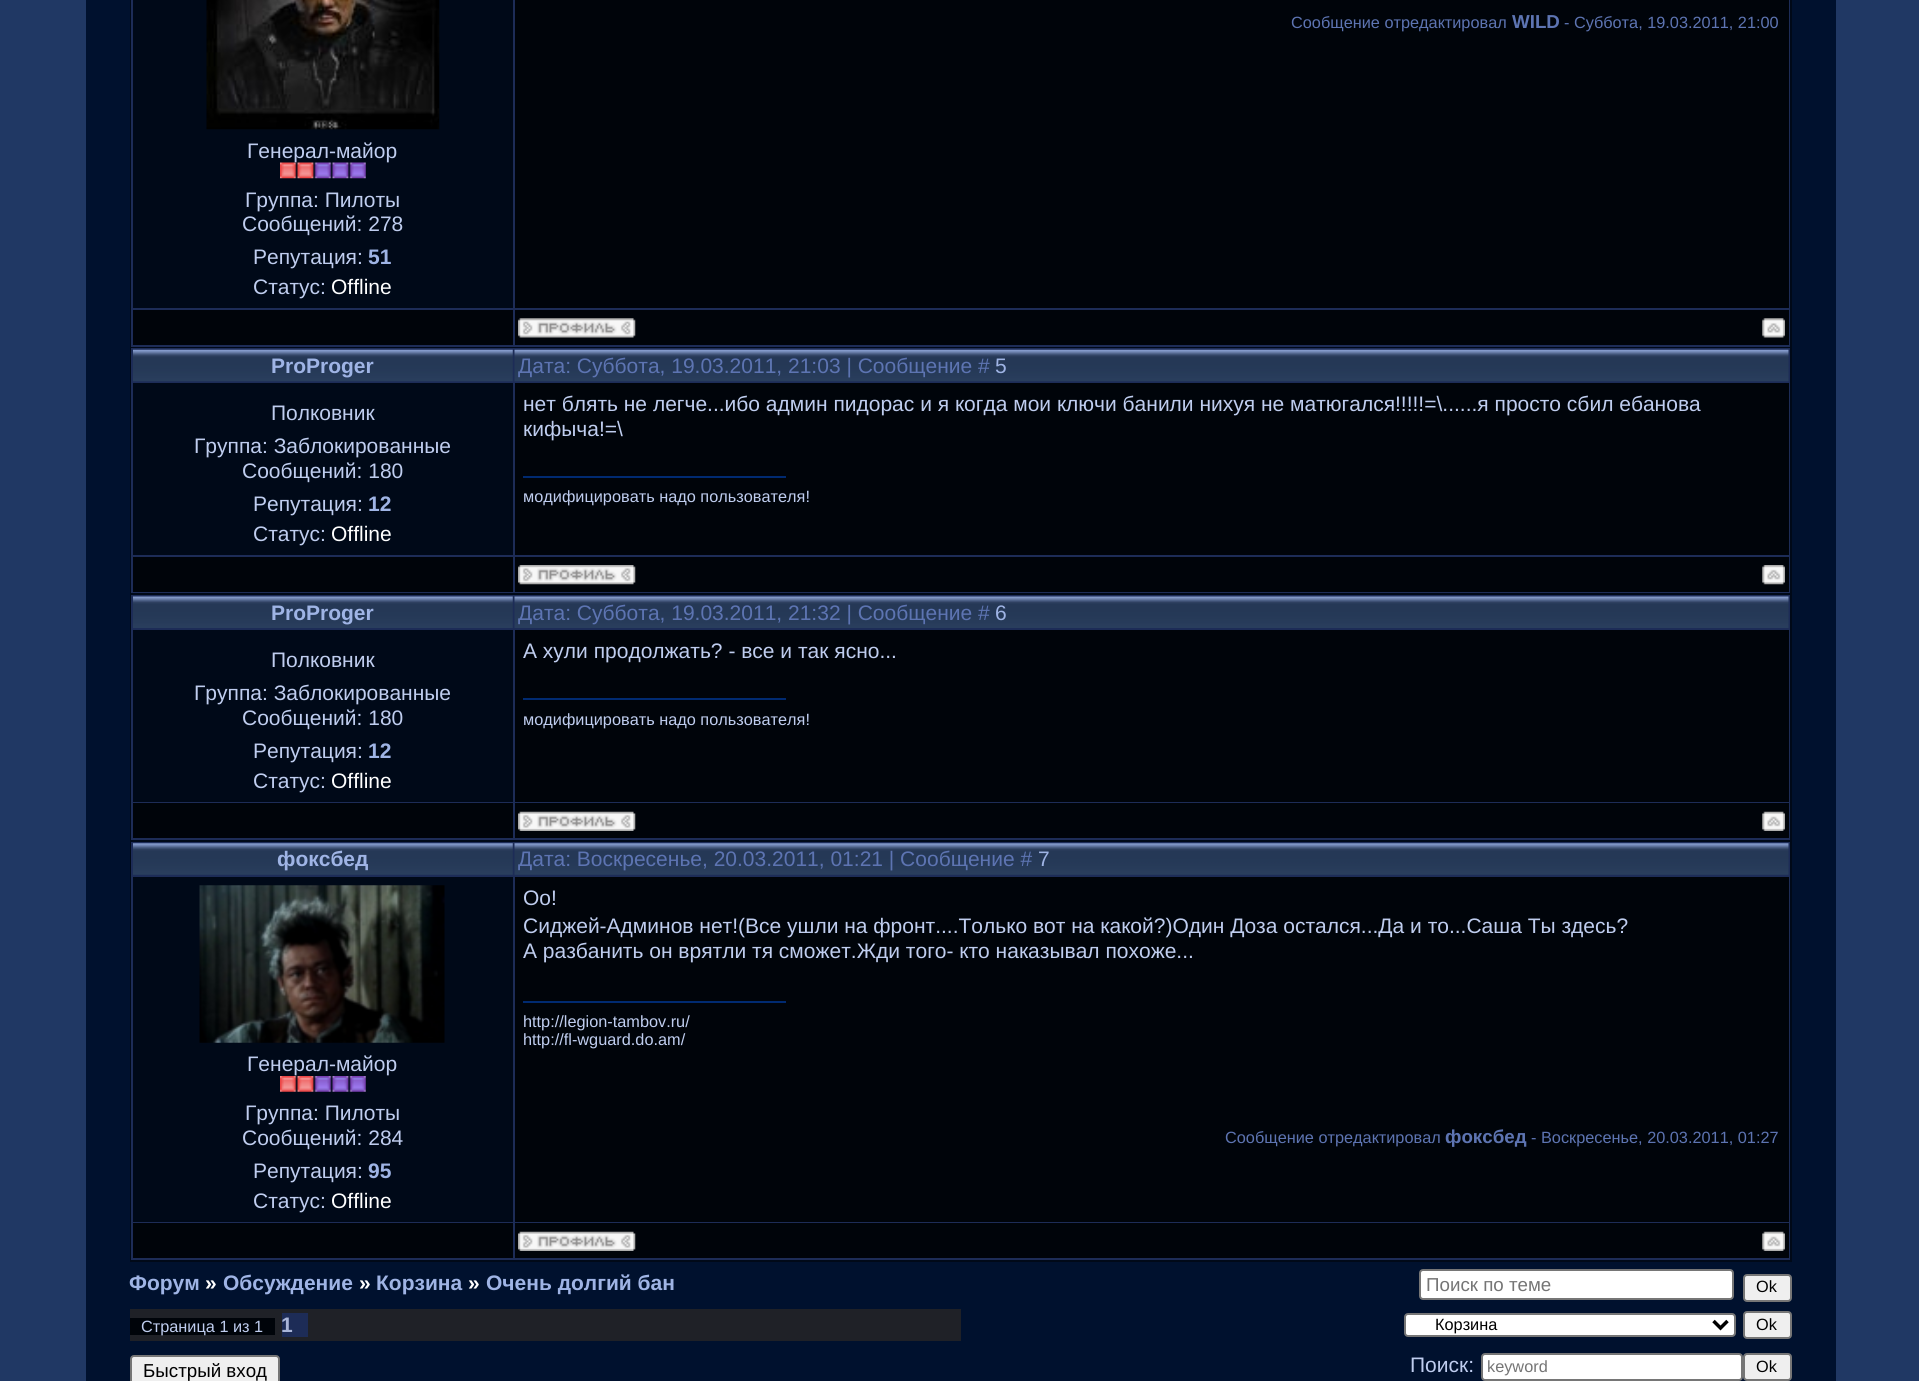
#include <cairo.h>
#include <math.h>
#include <stddef.h>


static void set_color(cairo_t *cr, unsigned color) {
    cairo_set_source_rgb(cr, (color >> 16) / 255.0, (color >> 8 & 255) / 255.0, (color & 255) / 255.0);
}

static void draw_text(cairo_t *cr, double x, double y, const char *s, const char *family, double size, int italic, int bold, unsigned color) {
    cairo_select_font_face(cr, family, italic ? CAIRO_FONT_SLANT_ITALIC : CAIRO_FONT_SLANT_NORMAL,
        bold ? CAIRO_FONT_WEIGHT_BOLD : CAIRO_FONT_WEIGHT_NORMAL);
    cairo_set_font_size(cr, size);
    set_color(cr, color);
    cairo_move_to(cr, x, y);
    cairo_show_text(cr, s);
}

static void fill_rect(cairo_t *cr, double x, double y, double w, double h, unsigned color) {
    set_color(cr, color);
    cairo_rectangle(cr, x, y, w, h);
    cairo_fill(cr);
}

static void rounded_rect(cairo_t *cr, double x, double y, double w, double h, double r) {
    cairo_new_sub_path(cr);
    cairo_arc(cr, x + w - r, y + h - r, r, 0, M_PI / 2);
    cairo_arc(cr, x + r, y + h - r, r, M_PI / 2, M_PI);
    cairo_arc(cr, x + r, y + r, r, M_PI, 1.5 * M_PI);
    cairo_arc(cr, x + w - r, y + r, r, 1.5 * M_PI, 2 * M_PI);
    cairo_close_path(cr);
}

static void draw_image(cairo_t *cr, const char *path, double x, double y, double w, double h) {
    cairo_surface_t *image = cairo_image_surface_create_from_png(path);
    cairo_save(cr);
    cairo_set_source_surface(cr, image, x, y);
    cairo_rectangle(cr, x, y, w, h);
    cairo_fill(cr);
    cairo_restore(cr);
    cairo_surface_destroy(image);
}

int main(void) {
    cairo_surface_t *surface = cairo_image_surface_create(CAIRO_FORMAT_RGB24, 1919, 1381);
    cairo_t *cr = cairo_create(surface);
    cairo_font_options_t *options = cairo_font_options_create();
    cairo_font_options_set_hint_metrics(options, CAIRO_HINT_METRICS_OFF);
    cairo_font_options_set_hint_style(options, CAIRO_HINT_STYLE_NONE);
    cairo_set_font_options(cr, options);
    cairo_set_miter_limit(cr, 4);
    set_color(cr, 0x203864);
    cairo_paint(cr);
    fill_rect(cr, 86, 0, 1750, 1381, 0x00112E);
    fill_rect(cr, 130, 0, 1662, 1262, 0x000918);
    fill_rect(cr, 131, 0, 1659, 347, 0x1D2C57);
    fill_rect(cr, 515, 0, 1274, 308, 0x00040A);
    draw_text(cr, 1291, 28, "Сообщение отредактировал", "Liberation Sans", 16.3, 0, 0, 0x5D74B2);
    draw_text(cr, 1512, 28, "WILD", "Liberation Sans", 18.75, 0, 1, 0x5D74B2);
    draw_text(cr, 1564, 28, "- Суббота, 19.03.2011, 21:00", "Liberation Sans", 16.3, 0, 0, 0x5D74B2);
    fill_rect(cr, 133, 0, 380, 308, 0x000918);
    draw_image(cr, "assets/img1.png", 206, 0, 234, 130);
    draw_text(cr, 247, 158, "Генерал-майор", "Liberation Sans", 21, 0, 0, 0xBFCDEF);
    draw_image(cr, "assets/img2.png", 280, 162, 86, 17);
    draw_text(cr, 245, 207, "Группа: Пилоты", "Liberation Sans", 21, 0, 0, 0xBFCDEF);
    draw_text(cr, 242, 231, "Сообщений: 278", "Liberation Sans", 21, 0, 0, 0xBFCDEF);
    draw_text(cr, 253, 264, "Репутация:", "Liberation Sans", 21, 0, 0, 0xBFCDEF);
    draw_text(cr, 368, 264, "51", "Liberation Sans", 21, 0, 1, 0x9FB4E5);
    draw_text(cr, 253, 294, "Статус:", "Liberation Sans", 21, 0, 0, 0xBFCDEF);
    draw_text(cr, 331, 294, "Offline", "Liberation Sans", 21, 0, 0, 0xFFFFFF);
    fill_rect(cr, 133, 310, 380, 35, 0x00040A);
    fill_rect(cr, 515, 310, 1274, 35, 0x00040A);
    draw_image(cr, "assets/img3.png", 518, 318, 118, 20);
    draw_image(cr, "assets/img4.png", 1762, 318, 23, 20);
    fill_rect(cr, 131, 348, 1659, 245, 0x1D2C57);
    draw_image(cr, "assets/img5.png", 133, 349, 380, 33);
    draw_text(cr, 271, 373, "ProProger", "Liberation Sans", 21, 0, 1, 0x9FB4E5);
    draw_image(cr, "assets/img6.png", 514, 349, 1275, 33);
    draw_text(cr, 518, 373, "Дата: Суббота, 19.03.2011, 21:03 | Сообщение #", "Liberation Sans", 21, 0, 0, 0x5D74B2);
    draw_text(cr, 995, 373, "5", "Liberation Sans", 21, 0, 0, 0x9FB4E5);
    fill_rect(cr, 133, 383, 380, 172, 0x000918);
    draw_text(cr, 271, 420, "Полковник", "Liberation Sans", 21, 0, 0, 0xBFCDEF);
    draw_text(cr, 194, 453, "Группа: Заблокированные", "Liberation Sans", 21, 0, 0, 0xBFCDEF);
    draw_text(cr, 242, 478, "Сообщений: 180", "Liberation Sans", 21, 0, 0, 0xBFCDEF);
    draw_text(cr, 253, 511, "Репутация:", "Liberation Sans", 21, 0, 0, 0xBFCDEF);
    draw_text(cr, 368, 511, "12", "Liberation Sans", 21, 0, 1, 0x9FB4E5);
    draw_text(cr, 253, 541, "Статус:", "Liberation Sans", 21, 0, 0, 0xBFCDEF);
    draw_text(cr, 331, 541, "Offline", "Liberation Sans", 21, 0, 0, 0xFFFFFF);
    fill_rect(cr, 515, 383, 1274, 172, 0x00040A);
    draw_text(cr, 523, 411, "нет блять не легче...ибо админ пидорас и я когда мои ключи банили нихуя не матюгался!!!!!=\\......я просто сбил ебанова", "Liberation Sans", 21, 0, 0, 0xBFCDEF);
    draw_text(cr, 523, 436, "кифыча!=\\", "Liberation Sans", 21, 0, 0, 0xBFCDEF);
    fill_rect(cr, 523, 476, 263, 2, 0x002A71);
    draw_text(cr, 523, 502, "модифицировать надо пользователя!", "Liberation Sans", 16.3, 0, 0, 0xBFCDEF);
    fill_rect(cr, 133, 557, 380, 35, 0x00040A);
    fill_rect(cr, 515, 557, 1274, 35, 0x00040A);
    draw_image(cr, "assets/img7.png", 518, 565, 118, 20);
    draw_image(cr, "assets/img8.png", 1762, 565, 23, 20);
    fill_rect(cr, 131, 595, 1659, 245, 0x1D2C57);
    draw_image(cr, "assets/img9.png", 133, 596, 380, 32);
    draw_text(cr, 271, 620, "ProProger", "Liberation Sans", 21, 0, 1, 0x9FB4E5);
    draw_image(cr, "assets/img10.png", 514, 596, 1275, 32);
    draw_text(cr, 518, 620, "Дата: Суббота, 19.03.2011, 21:32 | Сообщение #", "Liberation Sans", 21, 0, 0, 0x5D74B2);
    draw_text(cr, 995, 620, "6", "Liberation Sans", 21, 0, 0, 0x9FB4E5);
    fill_rect(cr, 133, 630, 380, 172, 0x000918);
    draw_text(cr, 271, 667, "Полковник", "Liberation Sans", 21, 0, 0, 0xBFCDEF);
    draw_text(cr, 194, 700, "Группа: Заблокированные", "Liberation Sans", 21, 0, 0, 0xBFCDEF);
    draw_text(cr, 242, 725, "Сообщений: 180", "Liberation Sans", 21, 0, 0, 0xBFCDEF);
    draw_text(cr, 253, 758, "Репутация:", "Liberation Sans", 21, 0, 0, 0xBFCDEF);
    draw_text(cr, 368, 758, "12", "Liberation Sans", 21, 0, 1, 0x9FB4E5);
    draw_text(cr, 253, 788, "Статус:", "Liberation Sans", 21, 0, 0, 0xBFCDEF);
    draw_text(cr, 331, 788, "Offline", "Liberation Sans", 21, 0, 0, 0xFFFFFF);
    fill_rect(cr, 515, 630, 1274, 172, 0x00040A);
    draw_text(cr, 523, 658, "А хули продолжать? - все и так ясно...", "Liberation Sans", 21, 0, 0, 0xBFCDEF);
    fill_rect(cr, 523, 698, 263, 2, 0x002A71);
    draw_text(cr, 523, 725, "модифицировать надо пользователя!", "Liberation Sans", 16.3, 0, 0, 0xBFCDEF);
    fill_rect(cr, 133, 803, 380, 35, 0x00040A);
    fill_rect(cr, 515, 803, 1274, 35, 0x00040A);
    draw_image(cr, "assets/img11.png", 518, 811, 118, 20);
    draw_image(cr, "assets/img12.png", 1762, 811, 23, 20);
    fill_rect(cr, 131, 842, 1659, 418, 0x1D2C57);
    draw_image(cr, "assets/img13.png", 133, 843, 380, 32);
    draw_text(cr, 277, 866, "фоксбед", "Liberation Sans", 21, 0, 1, 0x9FB4E5);
    draw_image(cr, "assets/img14.png", 514, 843, 1275, 32);
    draw_text(cr, 518, 866, "Дата: Воскресенье, 20.03.2011, 01:21 | Сообщение #", "Liberation Sans", 21, 0, 0, 0x5D74B2);
    draw_text(cr, 1038, 866, "7", "Liberation Sans", 21, 0, 0, 0x9FB4E5);
    fill_rect(cr, 133, 877, 380, 345, 0x000918);
    draw_image(cr, "assets/img15.png", 199, 885, 246, 158);
    draw_text(cr, 247, 1071, "Генерал-майор", "Liberation Sans", 21, 0, 0, 0xBFCDEF);
    draw_image(cr, "assets/img16.png", 280, 1076, 86, 16);
    draw_text(cr, 245, 1120, "Группа: Пилоты", "Liberation Sans", 21, 0, 0, 0xBFCDEF);
    draw_text(cr, 242, 1145, "Сообщений: 284", "Liberation Sans", 21, 0, 0, 0xBFCDEF);
    draw_text(cr, 253, 1178, "Репутация:", "Liberation Sans", 21, 0, 0, 0xBFCDEF);
    draw_text(cr, 368, 1178, "95", "Liberation Sans", 21, 0, 1, 0x9FB4E5);
    draw_text(cr, 253, 1208, "Статус:", "Liberation Sans", 21, 0, 0, 0xBFCDEF);
    draw_text(cr, 331, 1208, "Offline", "Liberation Sans", 21, 0, 0, 0xFFFFFF);
    fill_rect(cr, 515, 877, 1274, 345, 0x00040A);
    draw_text(cr, 523, 905, "Оо!", "Liberation Sans", 21, 0, 0, 0xBFCDEF);
    draw_text(cr, 523, 933, "Сиджей-Админов нет!(Все ушли на фронт....Только вот на какой?)Один Доза остался...Да и то...Саша Ты здесь?", "Liberation Sans", 21, 0, 0, 0xBFCDEF);
    draw_text(cr, 523, 958, "А разбанить он врятли тя сможет.Жди того- кто наказывал похоже...", "Liberation Sans", 21, 0, 0, 0xBFCDEF);
    fill_rect(cr, 523, 1001, 263, 2, 0x002A71);
    draw_text(cr, 523, 1027, "http://legion-tambov.ru/", "Liberation Sans", 16.3, 0, 0, 0xBFCDEF);
    draw_text(cr, 523, 1045, "http://fl-wguard.do.am/", "Liberation Sans", 16.3, 0, 0, 0xBFCDEF);
    draw_text(cr, 1225, 1143, "Сообщение отредактировал", "Liberation Sans", 16.3, 0, 0, 0x5D74B2);
    draw_text(cr, 1445, 1143, "фоксбед", "Liberation Sans", 18.75, 0, 1, 0x5D74B2);
    draw_text(cr, 1531, 1143, "- Воскресенье, 20.03.2011, 01:27", "Liberation Sans", 16.3, 0, 0, 0x5D74B2);
    fill_rect(cr, 133, 1223, 380, 35, 0x00040A);
    fill_rect(cr, 515, 1223, 1274, 35, 0x00040A);
    draw_image(cr, "assets/img11.png", 518, 1231, 118, 20);
    draw_image(cr, "assets/img12.png", 1762, 1231, 23, 20);
    draw_text(cr, 129, 1290, "Форум", "Liberation Sans", 21, 0, 1, 0x9FB4E5);
    draw_text(cr, 205, 1290, "»", "Liberation Sans", 21, 0, 1, 0xFFFFFF);
    draw_text(cr, 223, 1290, "Обсуждение", "Liberation Sans", 21, 0, 1, 0x9FB4E5);
    draw_text(cr, 359, 1290, "»", "Liberation Sans", 21, 0, 1, 0xFFFFFF);
    draw_text(cr, 376, 1290, "Корзина", "Liberation Sans", 21, 0, 1, 0x9FB4E5);
    draw_text(cr, 468, 1290, "»", "Liberation Sans", 21, 0, 1, 0xFFFFFF);
    draw_text(cr, 486, 1290, "Очень долгий бан", "Liberation Sans", 21, 0, 1, 0x9FB4E5);
    set_color(cr, 0xFFFFFF);
    rounded_rect(cr, 1420, 1270, 313, 29, 3);
    cairo_fill_preserve(cr);
    set_color(cr, 0x767676);
    cairo_stroke(cr);
    draw_text(cr, 1426, 1291, "Поиск по теме", "Liberation Sans", 18.75, 0, 0, 0x757575);
    set_color(cr, 0xEFEFEF);
    rounded_rect(cr, 1744, 1275, 47, 26, 3);
    cairo_fill_preserve(cr);
    set_color(cr, 0x767676);
    cairo_stroke(cr);
    draw_text(cr, 1756, 1292, "Ok", "Liberation Sans", 16.3, 0, 0, 0x000000);
    fill_rect(cr, 130, 1309, 831, 32, 0x1F2127);
    fill_rect(cr, 130, 1318, 145, 17, 0x00040A);
    draw_text(cr, 141, 1332, "Страница 1 из 1", "Liberation Sans", 16.3, 0, 0, 0xBFCDEF);
    fill_rect(cr, 282, 1313, 26, 24, 0x1D2C57);
    draw_text(cr, 281, 1332, "1", "Liberation Sans", 21, 0, 1, 0xA9B5D8);
    set_color(cr, 0xFFFFFF);
    rounded_rect(cr, 1405, 1314, 330, 22, 3);
    cairo_fill_preserve(cr);
    set_color(cr, 0x767676);
    cairo_stroke(cr);
    cairo_new_path(cr);
    cairo_move_to(cr, 1713.5, 1321);
    cairo_line_to(cr, 1720.5, 1328);
    cairo_line_to(cr, 1727.5, 1321);
    set_color(cr, 0x000000);
    cairo_set_line_width(cr, 3.5);
    cairo_stroke(cr);
    draw_text(cr, 1435, 1330, "Корзина", "Liberation Sans", 16.3, 0, 0, 0x000000);
    set_color(cr, 0xEFEFEF);
    rounded_rect(cr, 1744, 1312, 47, 26, 3);
    cairo_fill_preserve(cr);
    set_color(cr, 0x767676);
    cairo_set_line_width(cr, 2);
    cairo_stroke(cr);
    draw_text(cr, 1756, 1330, "Ok", "Liberation Sans", 16.3, 0, 0, 0x000000);
    set_color(cr, 0xEFEFEF);
    rounded_rect(cr, 131, 1356, 148, 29, 3);
    cairo_fill_preserve(cr);
    set_color(cr, 0x767676);
    cairo_stroke(cr);
    draw_text(cr, 143, 1377, "Быстрый вход", "Liberation Sans", 18.75, 0, 0, 0x000000);
    draw_text(cr, 1410, 1372, "Поиск:", "Liberation Sans", 21, 0, 0, 0xBFCDEF);
    set_color(cr, 0xFFFFFF);
    rounded_rect(cr, 1482, 1354, 260, 26, 3);
    cairo_fill_preserve(cr);
    set_color(cr, 0x767676);
    cairo_stroke(cr);
    cairo_save(cr);
    cairo_rectangle(cr, 1488, 1358, 248, 18);
    cairo_clip(cr);
    draw_text(cr, 1487, 1372, "keyword", "Liberation Sans", 16.3, 0, 0, 0x757575);
    cairo_restore(cr);
    set_color(cr, 0xEFEFEF);
    rounded_rect(cr, 1744, 1354, 47, 26, 3);
    cairo_fill_preserve(cr);
    set_color(cr, 0x767676);
    cairo_stroke(cr);
    draw_text(cr, 1756, 1372, "Ok", "Liberation Sans", 16.3, 0, 0, 0x000000);
    cairo_surface_write_to_png(surface, "output.png");
    cairo_font_options_destroy(options);
    cairo_destroy(cr);
    cairo_surface_destroy(surface);
    return 0;
}
